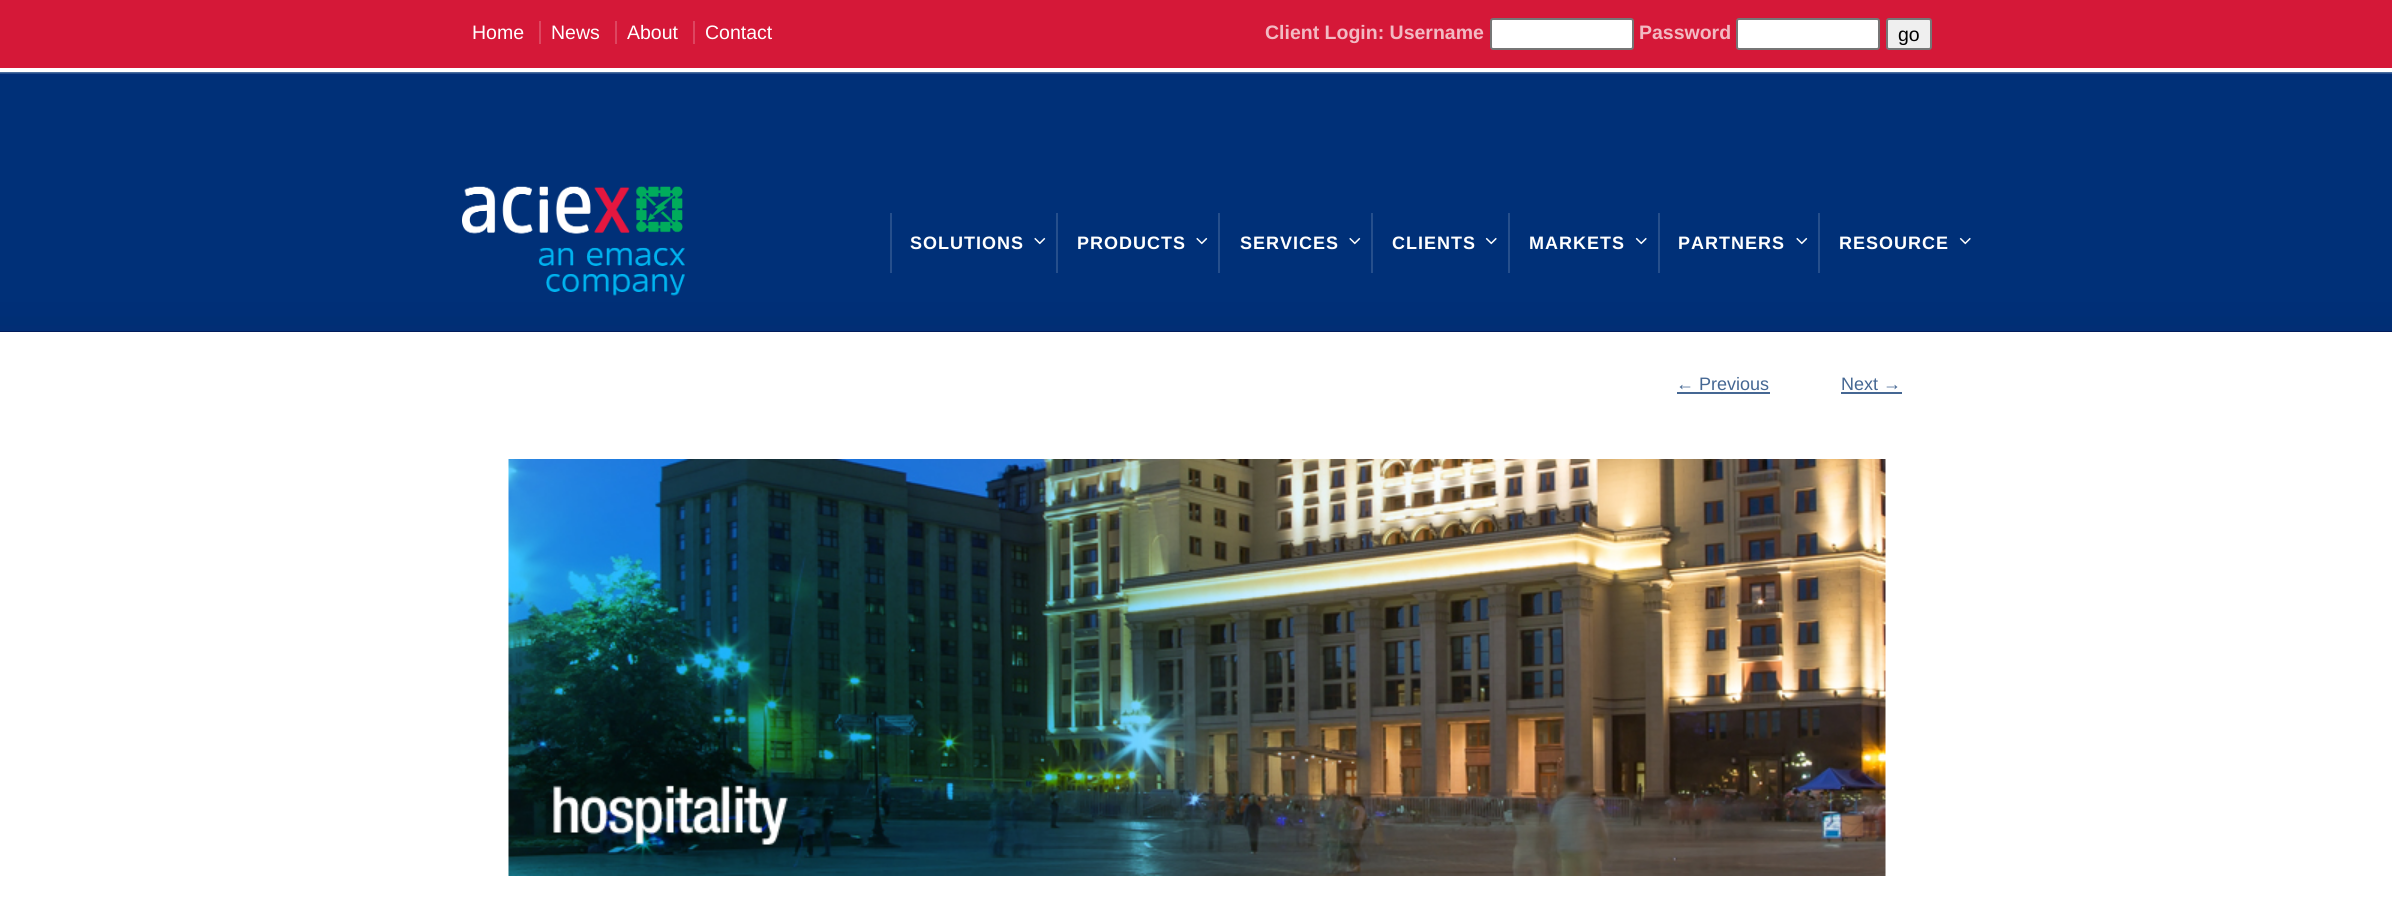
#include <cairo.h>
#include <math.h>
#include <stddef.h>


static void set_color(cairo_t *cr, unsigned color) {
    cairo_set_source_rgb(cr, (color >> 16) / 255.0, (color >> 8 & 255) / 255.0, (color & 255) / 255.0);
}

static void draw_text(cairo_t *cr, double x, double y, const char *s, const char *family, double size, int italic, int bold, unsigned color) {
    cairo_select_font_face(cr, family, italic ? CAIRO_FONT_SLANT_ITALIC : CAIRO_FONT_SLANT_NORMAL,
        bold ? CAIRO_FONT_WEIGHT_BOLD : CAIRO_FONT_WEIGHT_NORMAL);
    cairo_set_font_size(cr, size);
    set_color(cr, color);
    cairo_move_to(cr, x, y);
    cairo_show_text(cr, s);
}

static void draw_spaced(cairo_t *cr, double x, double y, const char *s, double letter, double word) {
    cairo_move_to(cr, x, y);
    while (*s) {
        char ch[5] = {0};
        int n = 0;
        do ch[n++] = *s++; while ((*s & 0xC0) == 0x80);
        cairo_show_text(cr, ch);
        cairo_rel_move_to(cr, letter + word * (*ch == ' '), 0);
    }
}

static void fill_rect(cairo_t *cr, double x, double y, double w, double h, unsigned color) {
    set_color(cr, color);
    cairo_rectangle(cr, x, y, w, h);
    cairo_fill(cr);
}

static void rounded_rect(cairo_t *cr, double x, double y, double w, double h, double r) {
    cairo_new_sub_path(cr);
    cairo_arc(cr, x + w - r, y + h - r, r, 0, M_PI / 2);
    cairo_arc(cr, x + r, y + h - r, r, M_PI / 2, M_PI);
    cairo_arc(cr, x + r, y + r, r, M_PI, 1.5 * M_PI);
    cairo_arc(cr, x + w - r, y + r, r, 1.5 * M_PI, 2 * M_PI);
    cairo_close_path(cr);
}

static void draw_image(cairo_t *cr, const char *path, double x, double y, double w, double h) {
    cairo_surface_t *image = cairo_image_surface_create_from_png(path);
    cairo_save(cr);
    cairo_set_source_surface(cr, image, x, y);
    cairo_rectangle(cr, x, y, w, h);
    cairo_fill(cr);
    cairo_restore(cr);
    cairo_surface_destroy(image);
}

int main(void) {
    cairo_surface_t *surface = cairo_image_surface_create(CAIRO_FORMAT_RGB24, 2392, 913);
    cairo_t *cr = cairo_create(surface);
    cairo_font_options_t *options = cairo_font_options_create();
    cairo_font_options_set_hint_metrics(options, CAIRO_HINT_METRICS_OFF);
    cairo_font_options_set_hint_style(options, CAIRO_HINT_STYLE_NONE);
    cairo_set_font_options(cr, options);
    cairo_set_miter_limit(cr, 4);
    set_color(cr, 0xD51838);
    cairo_paint(cr);
    fill_rect(cr, 0, 68, 2392, 4, 0xFFFFFF);
    draw_text(cr, 472, 39, "Home", "Liberation Sans", 19.5, 0, 0, 0xFFFFFF);
    fill_rect(cr, 539, 21, 2, 23, 0xDD4660);
    draw_text(cr, 551, 39, "News", "Liberation Sans", 19.5, 0, 0, 0xFFFFFF);
    fill_rect(cr, 615, 21, 2, 23, 0xDD4660);
    draw_text(cr, 627, 39, "About", "Liberation Sans", 19.5, 0, 0, 0xFFFFFF);
    fill_rect(cr, 693, 21, 2, 23, 0xDD4660);
    draw_text(cr, 705, 39, "Contact", "Liberation Sans", 19.5, 0, 0, 0xFFFFFF);
    draw_text(cr, 1265, 39, "Client Login: Username", "Liberation Sans", 19.5, 0, 1, 0xF2BAC3);
    set_color(cr, 0xFFFFFF);
    rounded_rect(cr, 1491, 19, 142, 30, 2);
    cairo_fill_preserve(cr);
    set_color(cr, 0x767676);
    cairo_stroke(cr);
    draw_text(cr, 1639, 39, "Password", "Liberation Sans", 19.5, 0, 1, 0xF2BAC3);
    set_color(cr, 0xFFFFFF);
    rounded_rect(cr, 1737, 19, 142, 30, 2);
    cairo_fill_preserve(cr);
    set_color(cr, 0x767676);
    cairo_stroke(cr);
    set_color(cr, 0xEFEFEF);
    rounded_rect(cr, 1887, 19, 44, 30, 2);
    cairo_fill_preserve(cr);
    set_color(cr, 0x767676);
    cairo_stroke(cr);
    draw_text(cr, 1898, 41, "go", "Liberation Sans", 19.5, 0, 0, 0x000000);
    fill_rect(cr, 0, 72, 2392, 2, 0x496D9D);
    fill_rect(cr, 0, 331, 2392, 1, 0x020B42);
    draw_image(cr, "assets/img1.png", 0, 73, 2392, 259);
    draw_image(cr, "assets/img2.png", 462, 186, 223, 110);
    fill_rect(cr, 890, 213, 2, 60, 0x264F8C);
    cairo_select_font_face(cr, "Liberation Sans", CAIRO_FONT_SLANT_NORMAL, CAIRO_FONT_WEIGHT_BOLD);
    cairo_set_font_size(cr, 18);
    set_color(cr, 0xFFFFFF);
    draw_spaced(cr, 910, 249, "SOLUTIONS", 1, 0);
    draw_image(cr, "assets/img3.png", 1034, 237, 12, 8);
    fill_rect(cr, 1056, 213, 2, 60, 0x264F8C);
    set_color(cr, 0xFFFFFF);
    draw_spaced(cr, 1077, 249, "PRODUCTS", 1, 0);
    draw_image(cr, "assets/img3.png", 1196, 237, 12, 8);
    fill_rect(cr, 1218, 213, 2, 60, 0x264F8C);
    set_color(cr, 0xFFFFFF);
    draw_spaced(cr, 1240, 249, "SERVICES", 1, 0);
    draw_image(cr, "assets/img3.png", 1349, 237, 12, 8);
    fill_rect(cr, 1371, 213, 2, 60, 0x264F8C);
    set_color(cr, 0xFFFFFF);
    draw_spaced(cr, 1392, 249, "CLIENTS", 1, 0);
    draw_image(cr, "assets/img4.png", 1485, 237, 12, 8);
    fill_rect(cr, 1508, 213, 2, 60, 0x264F8C);
    set_color(cr, 0xFFFFFF);
    draw_spaced(cr, 1529, 249, "MARKETS", 1, 0);
    draw_image(cr, "assets/img4.png", 1635, 237, 12, 8);
    fill_rect(cr, 1658, 213, 2, 60, 0x264F8C);
    set_color(cr, 0xFFFFFF);
    draw_spaced(cr, 1678, 249, "PARTNERS", 1, 0);
    draw_image(cr, "assets/img3.png", 1796, 237, 12, 8);
    fill_rect(cr, 1818, 213, 2, 60, 0x264F8C);
    set_color(cr, 0xFFFFFF);
    draw_spaced(cr, 1839, 249, "RESOURCE", 1, 0);
    draw_image(cr, "assets/img4.png", 1959, 237, 12, 8);
    fill_rect(cr, 0, 332, 2392, 581, 0xFFFFFF);
    draw_text(cr, 1676, 390, "← Previous", "Liberation Sans", 18, 0, 0, 0x456793);
    fill_rect(cr, 1677, 392, 93, 2, 0x456793);
    draw_text(cr, 1841, 390, "Next →", "Liberation Sans", 18, 0, 0, 0x456793);
    fill_rect(cr, 1841, 392, 61, 2, 0x456793);
    draw_image(cr, "assets/img5.png", 508, 459, 1378, 417);
    cairo_surface_write_to_png(surface, "output.png");
    cairo_font_options_destroy(options);
    cairo_destroy(cr);
    cairo_surface_destroy(surface);
    return 0;
}
